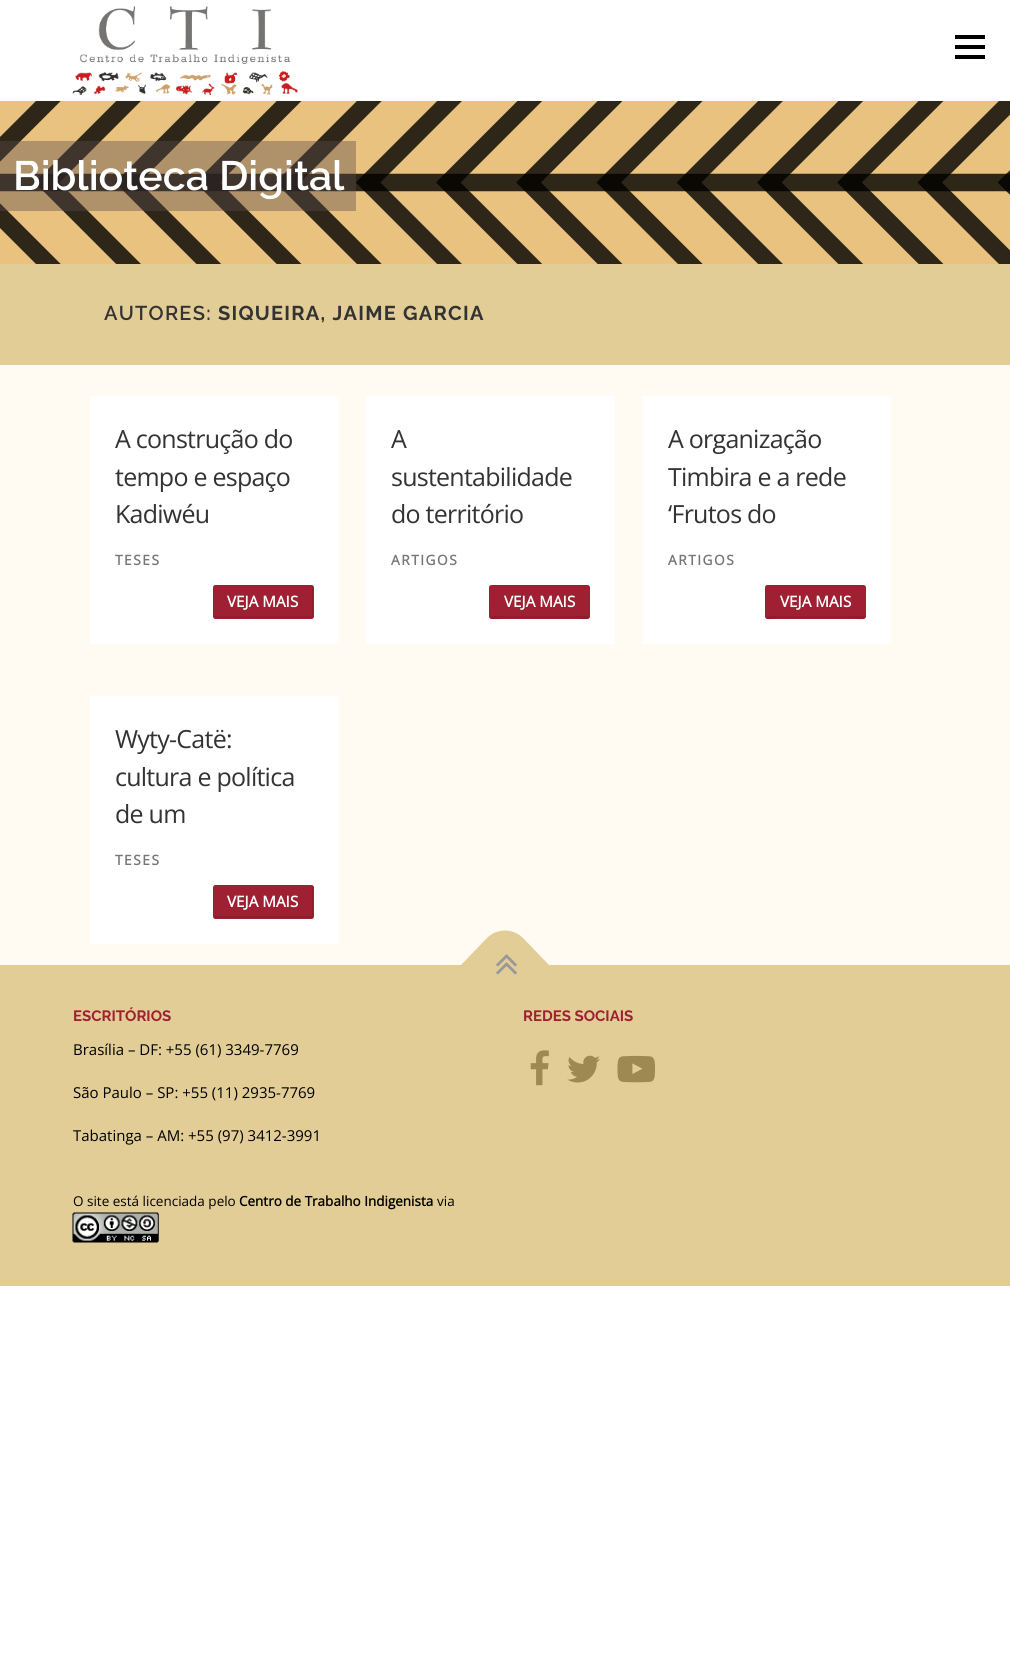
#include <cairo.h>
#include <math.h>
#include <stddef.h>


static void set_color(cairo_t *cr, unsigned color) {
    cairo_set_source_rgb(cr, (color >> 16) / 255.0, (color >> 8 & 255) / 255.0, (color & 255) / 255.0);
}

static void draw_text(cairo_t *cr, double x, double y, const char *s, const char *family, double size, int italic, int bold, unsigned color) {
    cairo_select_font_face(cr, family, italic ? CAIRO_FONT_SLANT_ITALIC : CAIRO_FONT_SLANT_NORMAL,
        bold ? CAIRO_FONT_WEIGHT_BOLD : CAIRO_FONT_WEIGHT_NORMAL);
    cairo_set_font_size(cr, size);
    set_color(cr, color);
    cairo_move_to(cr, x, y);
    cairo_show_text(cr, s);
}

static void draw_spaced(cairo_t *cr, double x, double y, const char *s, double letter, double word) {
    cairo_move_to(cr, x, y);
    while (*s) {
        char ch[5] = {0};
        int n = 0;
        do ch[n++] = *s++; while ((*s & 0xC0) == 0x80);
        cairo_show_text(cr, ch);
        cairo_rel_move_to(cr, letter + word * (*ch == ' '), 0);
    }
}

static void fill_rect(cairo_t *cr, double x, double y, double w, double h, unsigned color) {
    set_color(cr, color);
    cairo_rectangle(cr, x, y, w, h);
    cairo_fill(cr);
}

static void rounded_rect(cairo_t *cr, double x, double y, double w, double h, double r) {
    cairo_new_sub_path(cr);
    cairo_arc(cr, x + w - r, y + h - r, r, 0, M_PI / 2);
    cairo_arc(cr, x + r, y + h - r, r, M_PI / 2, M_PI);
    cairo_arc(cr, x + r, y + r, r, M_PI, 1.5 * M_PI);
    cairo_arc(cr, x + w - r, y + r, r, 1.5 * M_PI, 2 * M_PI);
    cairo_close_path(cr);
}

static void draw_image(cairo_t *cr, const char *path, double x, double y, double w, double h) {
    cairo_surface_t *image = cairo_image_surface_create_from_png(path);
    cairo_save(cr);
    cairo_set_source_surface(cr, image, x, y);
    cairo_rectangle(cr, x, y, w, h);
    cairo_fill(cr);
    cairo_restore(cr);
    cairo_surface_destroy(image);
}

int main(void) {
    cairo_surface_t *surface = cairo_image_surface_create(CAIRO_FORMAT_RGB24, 1010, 1678);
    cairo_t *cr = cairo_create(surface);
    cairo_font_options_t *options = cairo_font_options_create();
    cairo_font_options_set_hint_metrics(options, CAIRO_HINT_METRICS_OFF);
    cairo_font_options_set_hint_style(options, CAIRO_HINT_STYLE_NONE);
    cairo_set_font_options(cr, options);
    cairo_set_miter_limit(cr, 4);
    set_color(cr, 0xFFFFFF);
    cairo_paint(cr);
    draw_image(cr, "assets/img1.png", 72, 6, 226, 89);
    fill_rect(cr, 955, 45, 30, 4, 0x000000);
    fill_rect(cr, 955, 35, 30, 4, 0x000000);
    fill_rect(cr, 955, 55, 30, 4, 0x000000);
    fill_rect(cr, 0, 365, 1010, 600, 0xFFFBF2);
    fill_rect(cr, 0, 101, 1010, 163, 0xE8C27E);
    draw_image(cr, "assets/img2.png", 0, 101, 1010, 163);
    cairo_set_source_rgba(cr, 0.361, 0.302, 0.294, 0.4);
    cairo_rectangle(cr, 0, 141, 356, 70);
    cairo_fill(cr);
    draw_text(cr, 13, 190, "Biblioteca Digital", "Raleway SemiBold", 41, 0, 0, 0xFFFFFF);
    fill_rect(cr, 0, 264, 1010, 101, 0xE2CD97);
    cairo_set_font_size(cr, 20);
    set_color(cr, 0x333333);
    draw_spaced(cr, 104, 320, "AUTORES:", 1.25, 0);
    cairo_select_font_face(cr, "Raleway", CAIRO_FONT_SLANT_NORMAL, CAIRO_FONT_WEIGHT_BOLD);
    draw_spaced(cr, 218, 320, "SIQUEIRA, JAIME GARCIA", 1.25, 0);
    fill_rect(cr, 90, 396, 249, 248, 0xFFFFFF);
    cairo_select_font_face(cr, "Open Sans", CAIRO_FONT_SLANT_NORMAL, CAIRO_FONT_WEIGHT_NORMAL);
    cairo_set_font_size(cr, 25);
    set_color(cr, 0x333333);
    draw_spaced(cr, 115, 448, "A construção do", -0.75, 0);
    draw_spaced(cr, 115, 486, "tempo e espaço", -0.75, 0);
    draw_spaced(cr, 115, 523, "Kadiwéu", -0.75, 0);
    cairo_select_font_face(cr, "Open Sans", CAIRO_FONT_SLANT_NORMAL, CAIRO_FONT_WEIGHT_BOLD);
    cairo_set_font_size(cr, 13.75);
    set_color(cr, 0x777777);
    draw_spaced(cr, 115, 565, "TESES", 1.5, 0);
    set_color(cr, 0x9F2032);
    rounded_rect(cr, 213, 585, 101, 34, 2.5);
    cairo_fill(cr);
    set_color(cr, 0x8F1D2D);
    cairo_new_path(cr);
    cairo_move_to(cr, 214, 615);
    cairo_line_to(cr, 214, 617);
    cairo_curve_to(cr, 214, 618, 214, 618, 215, 618);
    cairo_line_to(cr, 312, 618);
    cairo_curve_to(cr, 313, 618, 313, 618, 313, 617);
    cairo_line_to(cr, 313, 587);
    cairo_curve_to(cr, 313, 586, 313, 586, 312, 586);
    cairo_line_to(cr, 312, 615);
    cairo_curve_to(cr, 312, 616, 312, 616, 311, 616);
    cairo_line_to(cr, 215, 616);
    cairo_curve_to(cr, 214, 616, 214, 616, 214, 615);
    cairo_close_path(cr);
    cairo_fill(cr);
    draw_text(cr, 227, 607, "VEJA MAIS", "Open Sans", 15.25, 0, 1, 0xFFFFFF);
    fill_rect(cr, 366, 396, 249, 248, 0xFFFFFF);
    cairo_select_font_face(cr, "Open Sans", CAIRO_FONT_SLANT_NORMAL, CAIRO_FONT_WEIGHT_NORMAL);
    cairo_set_font_size(cr, 25);
    set_color(cr, 0x333333);
    draw_spaced(cr, 391, 448, "A", -0.75, 0);
    draw_spaced(cr, 391, 486, "sustentabilidade", -0.75, 0);
    draw_spaced(cr, 391, 523, "do território", -0.75, 0);
    cairo_select_font_face(cr, "Open Sans", CAIRO_FONT_SLANT_NORMAL, CAIRO_FONT_WEIGHT_BOLD);
    cairo_set_font_size(cr, 13.75);
    set_color(cr, 0x777777);
    draw_spaced(cr, 391, 565, "ARTIGOS", 1.5, 0);
    set_color(cr, 0x9F2032);
    rounded_rect(cr, 489, 585, 101, 34, 2.5);
    cairo_fill(cr);
    cairo_set_source_rgba(cr, 0, 0, 0, 0.1);
    cairo_new_path(cr);
    cairo_move_to(cr, 490, 615);
    cairo_curve_to(cr, 490, 623, 497, 618, 507, 618);
    cairo_line_to(cr, 572, 618);
    cairo_curve_to(cr, 582, 618, 589, 623, 589, 615);
    cairo_line_to(cr, 588, 616);
    cairo_line_to(cr, 491, 616);
    cairo_close_path(cr);
    cairo_fill(cr);
    draw_text(cr, 504, 607, "VEJA MAIS", "Open Sans", 15.25, 0, 1, 0xFFFFFF);
    fill_rect(cr, 643, 396, 248, 248, 0xFFFFFF);
    cairo_select_font_face(cr, "Open Sans", CAIRO_FONT_SLANT_NORMAL, CAIRO_FONT_WEIGHT_NORMAL);
    cairo_set_font_size(cr, 25);
    set_color(cr, 0x333333);
    draw_spaced(cr, 668, 448, "A organização", -0.75, 0);
    draw_spaced(cr, 668, 486, "Timbira e a rede", -0.75, 0);
    draw_spaced(cr, 668, 523, "‘Frutos do", -0.75, 0);
    cairo_select_font_face(cr, "Open Sans", CAIRO_FONT_SLANT_NORMAL, CAIRO_FONT_WEIGHT_BOLD);
    cairo_set_font_size(cr, 13.75);
    set_color(cr, 0x777777);
    draw_spaced(cr, 668, 565, "ARTIGOS", 1.5, 0);
    set_color(cr, 0x9F2032);
    rounded_rect(cr, 765, 585, 101, 34, 2.5);
    cairo_fill(cr);
    cairo_set_source_rgba(cr, 0, 0, 0, 0.1);
    cairo_new_path(cr);
    cairo_move_to(cr, 766, 615);
    cairo_curve_to(cr, 766, 623, 773, 618, 783, 618);
    cairo_line_to(cr, 848, 618);
    cairo_curve_to(cr, 858, 618, 865, 623, 865, 615);
    cairo_line_to(cr, 864, 616);
    cairo_line_to(cr, 768, 616);
    cairo_curve_to(cr, 767, 616, 766, 616, 766, 615);
    cairo_close_path(cr);
    cairo_fill(cr);
    draw_text(cr, 780, 607, "VEJA MAIS", "Open Sans", 15.25, 0, 1, 0xFFFFFF);
    fill_rect(cr, 90, 696, 249, 248, 0xFFFFFF);
    cairo_select_font_face(cr, "Open Sans", CAIRO_FONT_SLANT_NORMAL, CAIRO_FONT_WEIGHT_NORMAL);
    cairo_set_font_size(cr, 25);
    set_color(cr, 0x333333);
    draw_spaced(cr, 115, 748, "Wyty-Catë:", -0.75, 0);
    draw_spaced(cr, 115, 786, "cultura e política", -0.75, 0);
    draw_spaced(cr, 115, 823, "de um", -0.75, 0);
    cairo_select_font_face(cr, "Open Sans", CAIRO_FONT_SLANT_NORMAL, CAIRO_FONT_WEIGHT_BOLD);
    cairo_set_font_size(cr, 13.75);
    set_color(cr, 0x777777);
    draw_spaced(cr, 115, 865, "TESES", 1.5, 0);
    set_color(cr, 0x9F2032);
    rounded_rect(cr, 213, 885, 101, 34, 2.5);
    cairo_fill(cr);
    set_color(cr, 0x8F1D2D);
    cairo_new_path(cr);
    cairo_move_to(cr, 214, 915);
    cairo_line_to(cr, 214, 917);
    cairo_curve_to(cr, 214, 918, 214, 918, 215, 918);
    cairo_line_to(cr, 312, 918);
    cairo_curve_to(cr, 313, 918, 313, 918, 313, 917);
    cairo_line_to(cr, 313, 887);
    cairo_curve_to(cr, 313, 886, 313, 886, 312, 886);
    cairo_line_to(cr, 312, 915);
    cairo_curve_to(cr, 312, 916, 312, 916, 311, 916);
    cairo_line_to(cr, 215, 916);
    cairo_curve_to(cr, 214, 916, 214, 916, 214, 915);
    cairo_close_path(cr);
    cairo_fill(cr);
    draw_text(cr, 227, 907, "VEJA MAIS", "Open Sans", 15.25, 0, 1, 0xFFFFFF);
    fill_rect(cr, 0, 965, 1010, 321, 0xE2CD97);
    cairo_new_path(cr);
    cairo_move_to(cr, 461, 965);
    cairo_line_to(cr, 487, 938);
    cairo_curve_to(cr, 497, 928, 513, 928, 523, 938);
    cairo_line_to(cr, 549, 965);
    cairo_line_to(cr, 505, 1009);
    cairo_close_path(cr);
    cairo_fill(cr);
    draw_image(cr, "assets/img3.png", 496, 954, 21, 21);
    draw_text(cr, 73, 1021, "ESCRITÓRIOS", "Raleway", 15, 0, 1, 0x9F2032);
    draw_text(cr, 73, 1055, "Brasília – DF: +55 (61) 3349-7769", "Open Sans", 15, 0, 0, 0x000000);
    draw_text(cr, 73, 1098, "São Paulo – SP: +55 (11) 2935-7769", "Open Sans", 15, 0, 0, 0x000000);
    draw_text(cr, 73, 1141, "Tabatinga – AM: +55 (97) 3412-3991", "Open Sans", 15, 0, 0, 0x000000);
    draw_text(cr, 523, 1021, "REDES SOCIAIS", "Raleway", 15, 0, 1, 0x9F2032);
    draw_image(cr, "assets/img4.png", 530, 1050, 19, 36);
    draw_image(cr, "assets/img5.png", 567, 1055, 33, 28);
    draw_image(cr, "assets/img6.png", 617, 1055, 38, 28);
    draw_text(cr, 73, 1206, "O site está licenciada pelo", "Open Sans", 13.5, 0, 0, 0x000000);
    draw_text(cr, 239, 1206, "Centro de Trabalho Indigenista", "Open Sans", 13.5, 0, 1, 0x000000);
    draw_text(cr, 437, 1206, "via", "Open Sans", 13.5, 0, 0, 0x000000);
    draw_image(cr, "assets/img7.png", 72, 1212, 87, 31);
    cairo_surface_write_to_png(surface, "output.png");
    cairo_font_options_destroy(options);
    cairo_destroy(cr);
    cairo_surface_destroy(surface);
    return 0;
}
